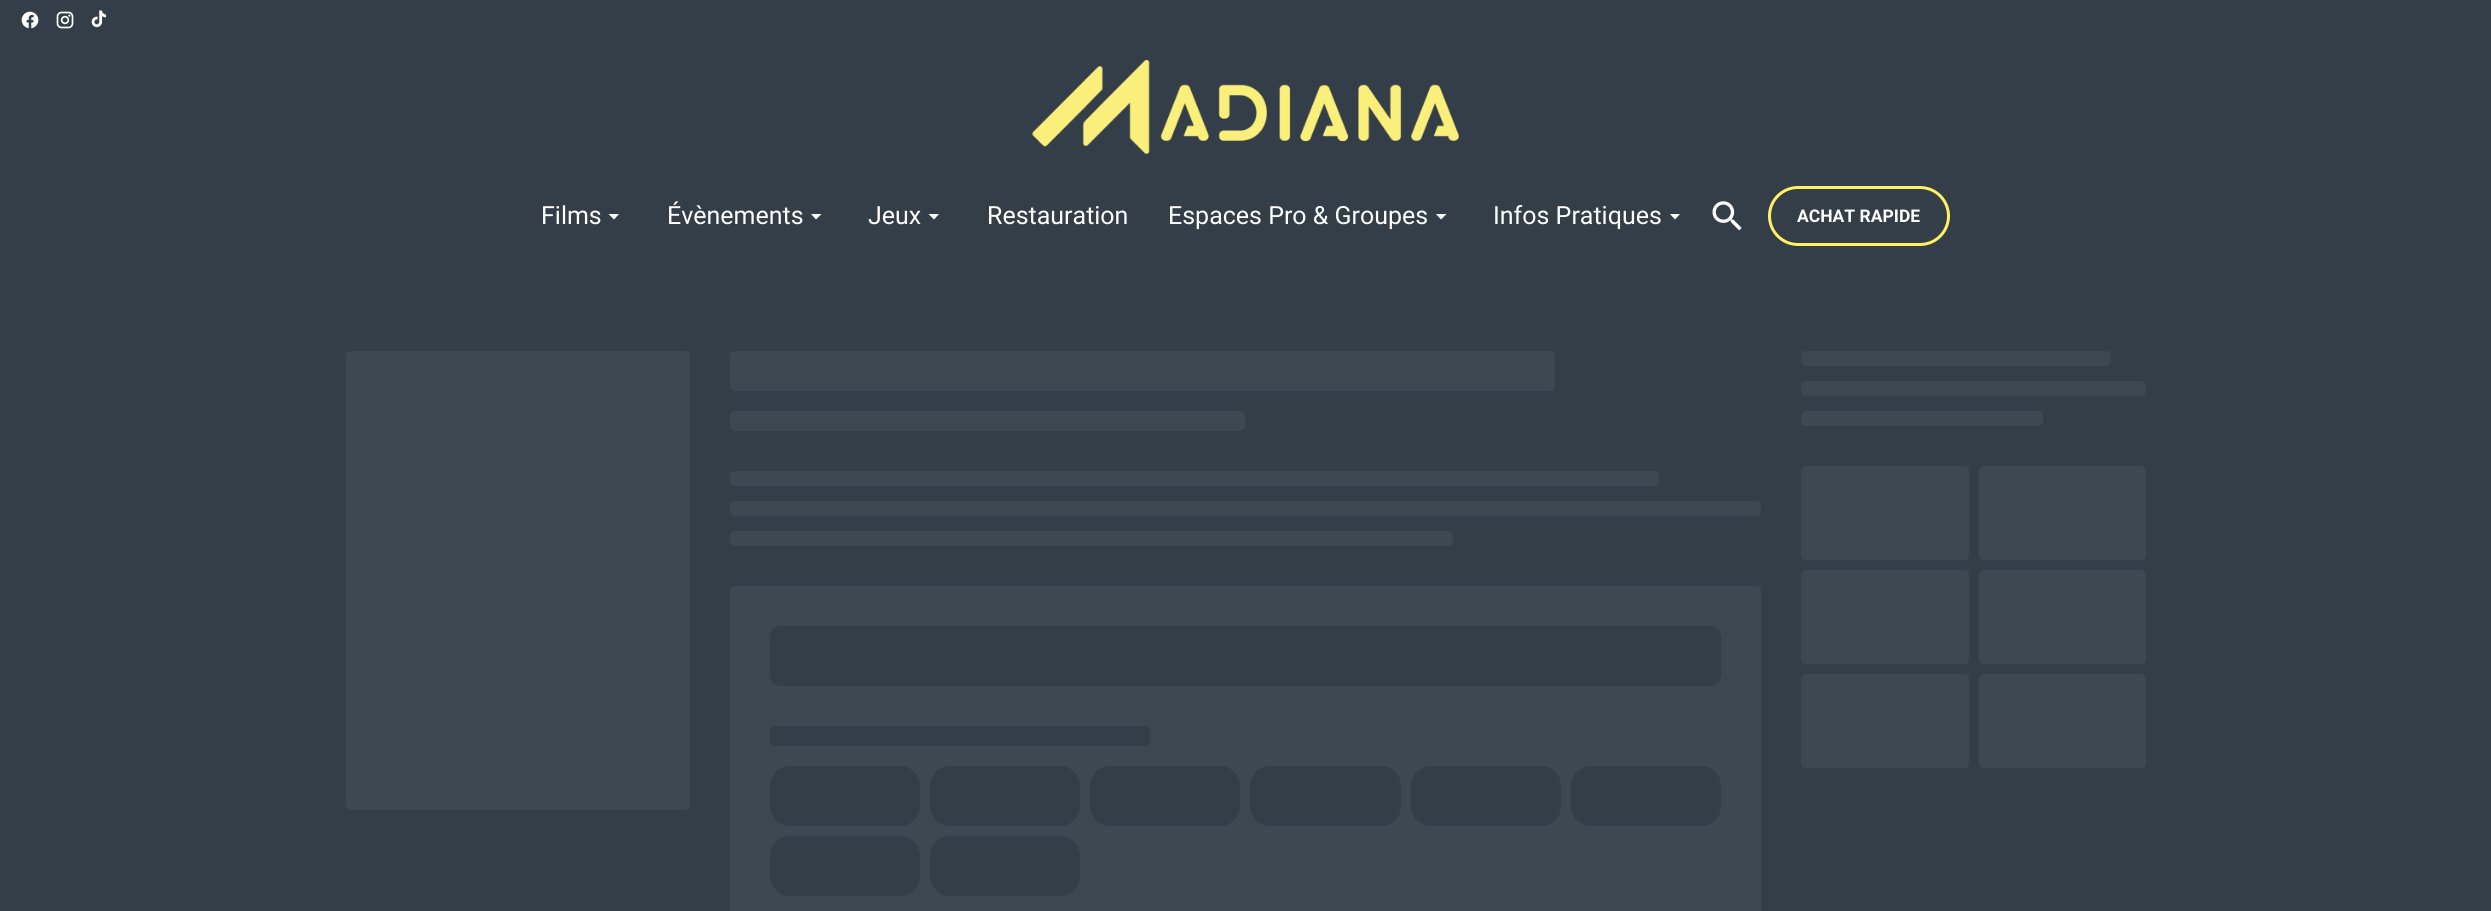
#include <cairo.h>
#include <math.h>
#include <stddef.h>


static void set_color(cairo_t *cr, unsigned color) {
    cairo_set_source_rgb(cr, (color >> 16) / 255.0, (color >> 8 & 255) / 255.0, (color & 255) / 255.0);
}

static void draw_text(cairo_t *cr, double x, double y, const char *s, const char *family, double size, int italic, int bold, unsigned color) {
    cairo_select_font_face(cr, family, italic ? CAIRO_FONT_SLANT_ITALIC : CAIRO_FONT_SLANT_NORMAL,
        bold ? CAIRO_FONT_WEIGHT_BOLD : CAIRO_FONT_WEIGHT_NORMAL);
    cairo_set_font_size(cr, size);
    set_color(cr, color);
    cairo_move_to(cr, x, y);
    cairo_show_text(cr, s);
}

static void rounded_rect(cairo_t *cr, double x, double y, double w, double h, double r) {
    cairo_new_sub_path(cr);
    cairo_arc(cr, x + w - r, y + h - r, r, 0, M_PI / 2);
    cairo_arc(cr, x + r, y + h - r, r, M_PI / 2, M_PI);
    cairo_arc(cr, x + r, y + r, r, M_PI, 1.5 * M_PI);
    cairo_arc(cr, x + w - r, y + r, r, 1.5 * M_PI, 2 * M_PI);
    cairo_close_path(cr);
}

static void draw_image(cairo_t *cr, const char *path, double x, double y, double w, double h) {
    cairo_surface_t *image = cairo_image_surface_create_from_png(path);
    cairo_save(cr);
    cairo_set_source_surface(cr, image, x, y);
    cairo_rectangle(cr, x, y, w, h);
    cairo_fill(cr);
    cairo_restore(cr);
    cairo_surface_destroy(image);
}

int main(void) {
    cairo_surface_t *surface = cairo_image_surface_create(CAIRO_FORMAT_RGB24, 2491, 911);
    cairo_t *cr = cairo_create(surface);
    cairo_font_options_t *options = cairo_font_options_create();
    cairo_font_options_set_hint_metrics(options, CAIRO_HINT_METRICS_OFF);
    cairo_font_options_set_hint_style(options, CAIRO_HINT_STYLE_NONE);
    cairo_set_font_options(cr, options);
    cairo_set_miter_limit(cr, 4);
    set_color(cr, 0x333E48);
    cairo_paint(cr);
    draw_image(cr, "assets/img1.png", 21, 11, 18, 18);
    draw_image(cr, "assets/img2.png", 56, 11, 18, 18);
    draw_image(cr, "assets/img3.png", 91, 10, 15, 18);
    draw_image(cr, "assets/img4.png", 1032, 60, 427, 94);
    draw_text(cr, 541, 224, "Films", "Roboto", 25, 0, 0, 0xFFFFFF);
    cairo_new_path(cr);
    cairo_move_to(cr, 608.5, 214);
    cairo_line_to(cr, 614, 219.5);
    cairo_line_to(cr, 619, 214);
    cairo_close_path(cr);
    cairo_fill(cr);
    draw_text(cr, 667, 224, "Évènements", "Roboto", 25, 0, 0, 0xFFFFFF);
    cairo_new_path(cr);
    cairo_move_to(cr, 811, 214);
    cairo_line_to(cr, 816, 219.5);
    cairo_line_to(cr, 821.5, 214);
    cairo_close_path(cr);
    cairo_fill(cr);
    draw_text(cr, 868, 224, "Jeux", "Roboto", 25, 0, 0, 0xFFFFFF);
    cairo_new_path(cr);
    cairo_move_to(cr, 928.5, 214);
    cairo_line_to(cr, 934, 219.5);
    cairo_line_to(cr, 939, 214);
    cairo_close_path(cr);
    cairo_fill(cr);
    draw_text(cr, 987, 224, "Restauration", "Roboto", 25, 0, 0, 0xFFFFFF);
    draw_text(cr, 1168, 224, "Espaces Pro & Groupes", "Roboto", 25, 0, 0, 0xFFFFFF);
    cairo_new_path(cr);
    cairo_move_to(cr, 1436, 214);
    cairo_line_to(cr, 1441, 219.5);
    cairo_line_to(cr, 1446.5, 214);
    cairo_close_path(cr);
    cairo_fill(cr);
    draw_text(cr, 1493, 224, "Infos Pratiques", "Roboto", 25, 0, 0, 0xFFFFFF);
    cairo_new_path(cr);
    cairo_move_to(cr, 1670, 214);
    cairo_line_to(cr, 1675, 219.5);
    cairo_line_to(cr, 1680, 214);
    cairo_close_path(cr);
    cairo_fill(cr);
    draw_image(cr, "assets/img5.png", 1712, 201, 30, 30);
    rounded_rect(cr, 1769.5, 187.5, 179, 57, 28.5);
    set_color(cr, 0xFFF064);
    cairo_set_line_width(cr, 3);
    cairo_stroke(cr);
    draw_text(cr, 1797, 222, "ACHAT RAPIDE", "Roboto", 17.5, 0, 1, 0xFFFFFF);
    set_color(cr, 0x3D4851);
    rounded_rect(cr, 346, 351, 344, 459, 5);
    cairo_fill(cr);
    rounded_rect(cr, 730, 351, 825, 40, 5);
    cairo_fill(cr);
    rounded_rect(cr, 730, 411, 515, 20, 5);
    cairo_fill(cr);
    rounded_rect(cr, 1801, 351, 310, 15, 5);
    cairo_fill(cr);
    rounded_rect(cr, 1801, 381, 345, 15, 5);
    cairo_fill(cr);
    rounded_rect(cr, 1801, 411, 242, 15, 5);
    cairo_fill(cr);
    rounded_rect(cr, 1801, 466, 168, 94, 5);
    cairo_fill(cr);
    rounded_rect(cr, 1979, 466, 167, 94, 5);
    cairo_fill(cr);
    rounded_rect(cr, 1801, 570, 168, 94, 5);
    cairo_fill(cr);
    rounded_rect(cr, 1979, 570, 167, 94, 5);
    cairo_fill(cr);
    rounded_rect(cr, 1801, 674, 168, 94, 5);
    cairo_fill(cr);
    rounded_rect(cr, 1979, 674, 167, 94, 5);
    cairo_fill(cr);
    rounded_rect(cr, 730, 471, 929, 15, 5);
    cairo_fill(cr);
    rounded_rect(cr, 730, 501, 1031, 15, 5);
    cairo_fill(cr);
    rounded_rect(cr, 730, 531, 723, 15, 5);
    cairo_fill(cr);
    rounded_rect(cr, 730, 586, 1031, 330, 5);
    cairo_fill(cr);
    set_color(cr, 0x333E48);
    rounded_rect(cr, 770, 626, 951, 60, 10);
    cairo_fill(cr);
    rounded_rect(cr, 770, 726, 380, 20, 5);
    cairo_fill(cr);
    rounded_rect(cr, 770, 766, 150, 60, 20);
    cairo_fill(cr);
    rounded_rect(cr, 930, 766, 150, 60, 20);
    cairo_fill(cr);
    rounded_rect(cr, 1090, 766, 150, 60, 20);
    cairo_fill(cr);
    rounded_rect(cr, 1250, 766, 151, 60, 20);
    cairo_fill(cr);
    rounded_rect(cr, 1411, 766, 150, 60, 20);
    cairo_fill(cr);
    rounded_rect(cr, 1571, 766, 150, 60, 20);
    cairo_fill(cr);
    rounded_rect(cr, 770, 836, 150, 60, 20);
    cairo_fill(cr);
    rounded_rect(cr, 930, 836, 150, 60, 20);
    cairo_fill(cr);
    cairo_surface_write_to_png(surface, "output.png");
    cairo_font_options_destroy(options);
    cairo_destroy(cr);
    cairo_surface_destroy(surface);
    return 0;
}
